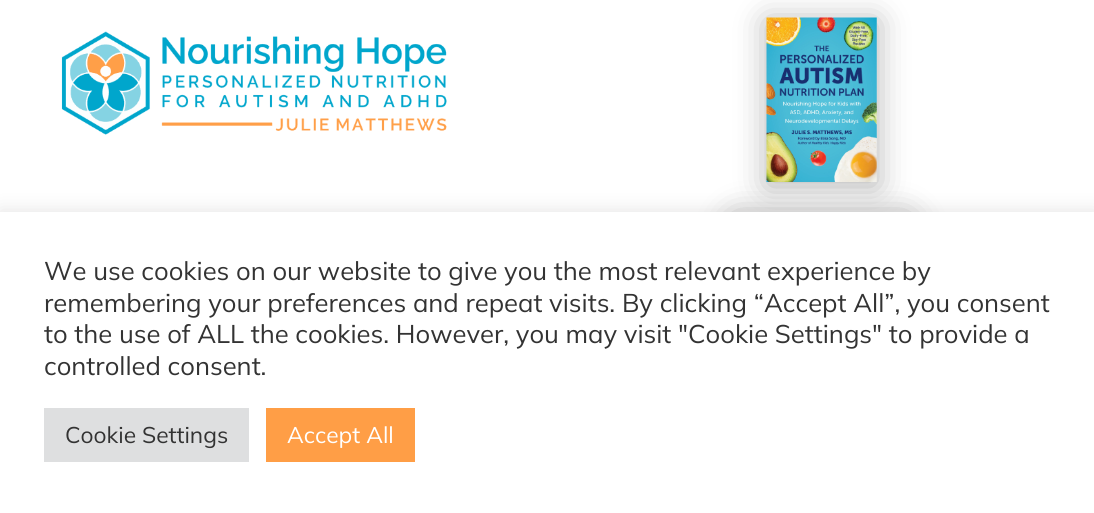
#include <cairo.h>
#include <math.h>
#include <stddef.h>


static void set_color(cairo_t *cr, unsigned color) {
    cairo_set_source_rgb(cr, (color >> 16) / 255.0, (color >> 8 & 255) / 255.0, (color & 255) / 255.0);
}

static void draw_text(cairo_t *cr, double x, double y, const char *s, const char *family, double size, int italic, int bold, unsigned color) {
    cairo_select_font_face(cr, family, italic ? CAIRO_FONT_SLANT_ITALIC : CAIRO_FONT_SLANT_NORMAL,
        bold ? CAIRO_FONT_WEIGHT_BOLD : CAIRO_FONT_WEIGHT_NORMAL);
    cairo_set_font_size(cr, size);
    set_color(cr, color);
    cairo_move_to(cr, x, y);
    cairo_show_text(cr, s);
}

static void fill_rect(cairo_t *cr, double x, double y, double w, double h, unsigned color) {
    set_color(cr, color);
    cairo_rectangle(cr, x, y, w, h);
    cairo_fill(cr);
}

static void rounded_rect(cairo_t *cr, double x, double y, double w, double h, double r) {
    cairo_new_sub_path(cr);
    cairo_arc(cr, x + w - r, y + h - r, r, 0, M_PI / 2);
    cairo_arc(cr, x + r, y + h - r, r, M_PI / 2, M_PI);
    cairo_arc(cr, x + r, y + r, r, M_PI, 1.5 * M_PI);
    cairo_arc(cr, x + w - r, y + r, r, 1.5 * M_PI, 2 * M_PI);
    cairo_close_path(cr);
}

static void draw_shadow(cairo_t *cr, double x, double y, double w, double h, double r, double blur, double alpha) {
    cairo_push_group_with_content(cr, CAIRO_CONTENT_ALPHA);
    cairo_set_operator(cr, CAIRO_OPERATOR_SOURCE);
    for (int i = 15; i >= -15 && fmin(w, h) + blur * i / 3 > 0; i -= 2) {
        double e = blur * i / 6;
        cairo_set_source_rgba(cr, 0, 0, 0, alpha * erfc((i - 1) / 8.5) / 2);
        rounded_rect(cr, x - e, y - e, w + 2 * e, h + 2 * e, fmax(0, fmin(r + e + blur * .6, fmin(w, h) / 2 + e)));
        cairo_fill(cr);
    }
    cairo_pattern_t *soft = cairo_pop_group(cr);
    cairo_mask(cr, soft);
    cairo_pattern_destroy(soft);
}

static void draw_image(cairo_t *cr, const char *path, double x, double y, double w, double h) {
    cairo_surface_t *image = cairo_image_surface_create_from_png(path);
    cairo_save(cr);
    cairo_set_source_surface(cr, image, x, y);
    cairo_rectangle(cr, x, y, w, h);
    cairo_fill(cr);
    cairo_restore(cr);
    cairo_surface_destroy(image);
}

int main(void) {
    cairo_surface_t *surface = cairo_image_surface_create(CAIRO_FORMAT_RGB24, 1094, 513);
    cairo_t *cr = cairo_create(surface);
    cairo_font_options_t *options = cairo_font_options_create();
    cairo_font_options_set_hint_metrics(options, CAIRO_HINT_METRICS_OFF);
    cairo_font_options_set_hint_style(options, CAIRO_HINT_STYLE_NONE);
    cairo_set_font_options(cr, options);
    cairo_set_miter_limit(cr, 4);
    set_color(cr, 0xFFFFFF);
    cairo_paint(cr);
    draw_image(cr, "assets/img1.png", 61, 31, 386, 104);
    set_color(cr, 0x000000);
    draw_shadow(cr, 767, 21, 110, 165, 0, 16, 0.3);
    draw_image(cr, "assets/img2.png", 766, 17, 111, 165);
    draw_shadow(cr, 728, 215, 187, 53, 9, 16, 0.3);
    set_color(cr, 0xACABAB);
    draw_shadow(cr, 0, 210, 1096, 303, 0, 9, 0.3);
    fill_rect(cr, 0, 212, 1094, 301, 0xFFFFFF);
    draw_text(cr, 44, 280, "We use cookies on our website to give you the most relevant experience by", "Mulish ExtraLight", 25.65, 0, 0, 0x333333);
    draw_text(cr, 44, 312, "remembering your preferences and repeat visits. By clicking “Accept All”, you consent", "Mulish ExtraLight", 25.65, 0, 0, 0x333333);
    draw_text(cr, 44, 343, "to the use of ALL the cookies. However, you may visit \"Cookie Settings\" to provide a", "Mulish ExtraLight", 25.65, 0, 0, 0x333333);
    draw_text(cr, 44, 375, "controlled consent.", "Mulish ExtraLight", 25.65, 0, 0, 0x333333);
    fill_rect(cr, 44, 408, 205, 54, 0xDEDFE0);
    draw_text(cr, 65, 443, "Cookie Settings", "Mulish ExtraLight", 22.75, 0, 0, 0x333333);
    fill_rect(cr, 266, 408, 149, 54, 0xFF9E46);
    draw_text(cr, 287, 443, "Accept All", "Mulish ExtraLight", 22.75, 0, 0, 0xFFFFFF);
    cairo_surface_write_to_png(surface, "output.png");
    cairo_font_options_destroy(options);
    cairo_destroy(cr);
    cairo_surface_destroy(surface);
    return 0;
}
